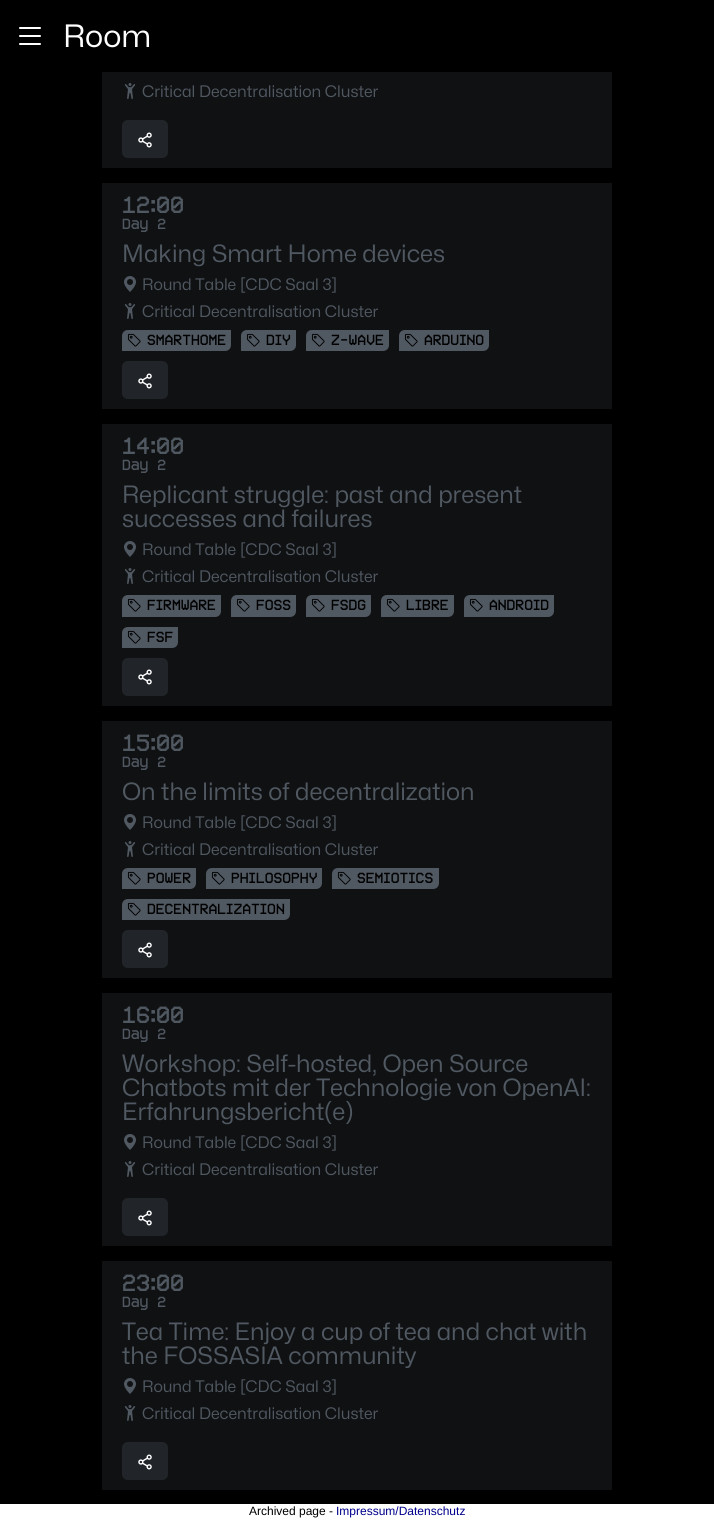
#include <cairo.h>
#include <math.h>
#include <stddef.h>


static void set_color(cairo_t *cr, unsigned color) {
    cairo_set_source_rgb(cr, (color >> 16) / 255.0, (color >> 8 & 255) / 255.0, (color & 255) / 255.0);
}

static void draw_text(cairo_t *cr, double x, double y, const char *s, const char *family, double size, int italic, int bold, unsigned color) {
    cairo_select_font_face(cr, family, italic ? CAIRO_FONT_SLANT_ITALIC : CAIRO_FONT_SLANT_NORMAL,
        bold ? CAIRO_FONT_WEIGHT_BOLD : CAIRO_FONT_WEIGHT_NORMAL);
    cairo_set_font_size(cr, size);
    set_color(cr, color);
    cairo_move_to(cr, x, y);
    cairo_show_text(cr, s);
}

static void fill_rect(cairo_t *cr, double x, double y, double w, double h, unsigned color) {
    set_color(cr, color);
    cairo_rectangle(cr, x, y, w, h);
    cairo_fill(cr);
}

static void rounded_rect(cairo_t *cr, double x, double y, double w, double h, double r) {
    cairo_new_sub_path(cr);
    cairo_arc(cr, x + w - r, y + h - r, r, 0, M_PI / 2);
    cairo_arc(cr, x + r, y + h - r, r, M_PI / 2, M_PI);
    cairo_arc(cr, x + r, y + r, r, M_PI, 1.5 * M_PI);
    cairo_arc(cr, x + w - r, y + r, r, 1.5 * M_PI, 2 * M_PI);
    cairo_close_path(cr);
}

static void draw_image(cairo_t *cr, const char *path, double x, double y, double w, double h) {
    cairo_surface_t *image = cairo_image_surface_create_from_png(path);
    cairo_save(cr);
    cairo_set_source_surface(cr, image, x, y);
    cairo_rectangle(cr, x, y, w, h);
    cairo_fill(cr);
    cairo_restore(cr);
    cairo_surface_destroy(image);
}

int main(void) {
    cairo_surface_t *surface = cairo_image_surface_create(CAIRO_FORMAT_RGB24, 714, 1520);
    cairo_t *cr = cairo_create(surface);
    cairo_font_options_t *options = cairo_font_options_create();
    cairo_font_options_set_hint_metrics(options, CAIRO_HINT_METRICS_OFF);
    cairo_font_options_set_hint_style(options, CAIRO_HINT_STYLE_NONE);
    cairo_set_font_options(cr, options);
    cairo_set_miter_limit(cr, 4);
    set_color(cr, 0x000000);
    cairo_paint(cr);
    draw_image(cr, "assets/img1.png", 19, 27, 22, 18);
    draw_text(cr, 63, 47, "Room", "Mona Sans", 31, 0, 0, 0xFFFFFF);
    fill_rect(cr, 102, 72, 510, 96, 0x101113);
    draw_image(cr, "assets/img2.png", 124, 83, 12, 16);
    draw_text(cr, 142, 97, "Critical Decentralisation Cluster", "Mona Sans", 16, 0, 0, 0x505861);
    set_color(cr, 0x212529);
    rounded_rect(cr, 122.5, 120.5, 45, 37, 5.5);
    cairo_fill_preserve(cr);
    cairo_set_line_width(cr, 1);
    cairo_stroke(cr);
    draw_image(cr, "assets/img3.png", 138, 132, 14, 16);
    fill_rect(cr, 102, 183, 510, 226, 0x101113);
    draw_text(cr, 122, 213, "12:00", "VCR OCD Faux", 24, 0, 0, 0x505861);
    draw_text(cr, 122, 229, "Day 2", "VCR OCD Faux", 15, 0, 0, 0x505861);
    draw_text(cr, 122, 262, "Making Smart Home devices", "Mona Sans", 24, 0, 0, 0x505861);
    draw_image(cr, "assets/img4.png", 124, 276, 12, 16);
    draw_text(cr, 142, 290, "Round Table [CDC Saal 3]", "Mona Sans", 16, 0, 0, 0x505861);
    draw_image(cr, "assets/img2.png", 124, 303, 12, 16);
    draw_text(cr, 142, 317, "Critical Decentralisation Cluster", "Mona Sans", 16, 0, 0, 0x505861);
    cairo_new_path(cr);
    cairo_move_to(cr, 128, 330);
    cairo_line_to(cr, 231, 330);
    cairo_line_to(cr, 231, 345);
    cairo_curve_to(cr, 231, 348.5, 228.5, 351, 225, 351);
    cairo_line_to(cr, 122, 351);
    cairo_line_to(cr, 122, 336);
    cairo_curve_to(cr, 122, 332.5, 124.5, 330, 128, 330);
    cairo_close_path(cr);
    cairo_fill(cr);
    draw_image(cr, "assets/img5.png", 127, 333, 14, 14);
    draw_text(cr, 147, 345, "SMARTHOME", "VCR OCD Faux", 15, 0, 0, 0x000000);
    set_color(cr, 0x505861);
    cairo_new_path(cr);
    cairo_move_to(cr, 247, 330);
    cairo_line_to(cr, 296, 330);
    cairo_line_to(cr, 296, 345);
    cairo_curve_to(cr, 296, 348.5, 293.5, 351, 290, 351);
    cairo_line_to(cr, 241, 351);
    cairo_line_to(cr, 241, 336);
    cairo_curve_to(cr, 241, 332.5, 243.5, 330, 247, 330);
    cairo_close_path(cr);
    cairo_fill(cr);
    draw_image(cr, "assets/img5.png", 246, 333, 14, 14);
    draw_text(cr, 266, 345, "DIY", "VCR OCD Faux", 15, 0, 0, 0x000000);
    set_color(cr, 0x505861);
    cairo_new_path(cr);
    cairo_move_to(cr, 312, 330);
    cairo_line_to(cr, 389, 330);
    cairo_line_to(cr, 389, 345);
    cairo_curve_to(cr, 389, 348.5, 386.5, 351, 383, 351);
    cairo_line_to(cr, 306, 351);
    cairo_line_to(cr, 306, 336);
    cairo_curve_to(cr, 306, 332.5, 308.5, 330, 312, 330);
    cairo_close_path(cr);
    cairo_fill(cr);
    draw_image(cr, "assets/img5.png", 311, 333, 14, 14);
    draw_text(cr, 331, 345, "Z-WAVE", "VCR OCD Faux", 15, 0, 0, 0x000000);
    set_color(cr, 0x505861);
    cairo_new_path(cr);
    cairo_move_to(cr, 405, 330);
    cairo_line_to(cr, 489, 330);
    cairo_line_to(cr, 489, 345);
    cairo_curve_to(cr, 489, 348.5, 486.5, 351, 483, 351);
    cairo_line_to(cr, 399, 351);
    cairo_line_to(cr, 399, 336);
    cairo_curve_to(cr, 399, 332.5, 401.5, 330, 405, 330);
    cairo_close_path(cr);
    cairo_fill(cr);
    draw_image(cr, "assets/img5.png", 404, 333, 14, 14);
    draw_text(cr, 424, 345, "ARDUINO", "VCR OCD Faux", 15, 0, 0, 0x000000);
    set_color(cr, 0x212529);
    rounded_rect(cr, 122.5, 361.5, 45, 37, 5.5);
    cairo_fill_preserve(cr);
    cairo_stroke(cr);
    draw_image(cr, "assets/img3.png", 138, 373, 14, 16);
    fill_rect(cr, 102, 424, 510, 282, 0x101113);
    draw_text(cr, 122, 454, "14:00", "VCR OCD Faux", 24, 0, 0, 0x505861);
    draw_text(cr, 122, 470, "Day 2", "VCR OCD Faux", 15, 0, 0, 0x505861);
    draw_text(cr, 122, 503, "Replicant struggle: past and present", "Mona Sans", 24, 0, 0, 0x505861);
    draw_text(cr, 122, 527, "successes and failures", "Mona Sans", 24, 0, 0, 0x505861);
    draw_image(cr, "assets/img4.png", 124, 541, 12, 16);
    draw_text(cr, 142, 555, "Round Table [CDC Saal 3]", "Mona Sans", 16, 0, 0, 0x505861);
    draw_image(cr, "assets/img2.png", 124, 568, 12, 16);
    draw_text(cr, 142, 582, "Critical Decentralisation Cluster", "Mona Sans", 16, 0, 0, 0x505861);
    cairo_new_path(cr);
    cairo_move_to(cr, 128, 595);
    cairo_line_to(cr, 221, 595);
    cairo_line_to(cr, 221, 611);
    cairo_curve_to(cr, 221, 614.5, 218.5, 617, 215, 617);
    cairo_line_to(cr, 122, 617);
    cairo_line_to(cr, 122, 601);
    cairo_curve_to(cr, 122, 597.5, 124.5, 595, 128, 595);
    cairo_close_path(cr);
    cairo_fill(cr);
    draw_image(cr, "assets/img5.png", 127, 598, 14, 14);
    draw_text(cr, 147, 610, "FIRMWARE", "VCR OCD Faux", 15, 0, 0, 0x000000);
    set_color(cr, 0x505861);
    cairo_new_path(cr);
    cairo_move_to(cr, 237, 595);
    cairo_line_to(cr, 296, 595);
    cairo_line_to(cr, 296, 611);
    cairo_curve_to(cr, 296, 614.5, 293.5, 617, 290, 617);
    cairo_line_to(cr, 231, 617);
    cairo_line_to(cr, 231, 601);
    cairo_curve_to(cr, 231, 597.5, 233.5, 595, 237, 595);
    cairo_close_path(cr);
    cairo_fill(cr);
    draw_image(cr, "assets/img5.png", 236, 598, 14, 14);
    draw_text(cr, 256, 610, "FOSS", "VCR OCD Faux", 15, 0, 0, 0x000000);
    set_color(cr, 0x505861);
    cairo_new_path(cr);
    cairo_move_to(cr, 312, 595);
    cairo_line_to(cr, 371, 595);
    cairo_line_to(cr, 371, 611);
    cairo_curve_to(cr, 371, 614.5, 368.5, 617, 365, 617);
    cairo_line_to(cr, 306, 617);
    cairo_line_to(cr, 306, 601);
    cairo_curve_to(cr, 306, 597.5, 308.5, 595, 312, 595);
    cairo_close_path(cr);
    cairo_fill(cr);
    draw_image(cr, "assets/img5.png", 311, 598, 14, 14);
    draw_text(cr, 331, 610, "FSDG", "VCR OCD Faux", 15, 0, 0, 0x000000);
    set_color(cr, 0x505861);
    cairo_new_path(cr);
    cairo_move_to(cr, 387, 595);
    cairo_line_to(cr, 454, 595);
    cairo_line_to(cr, 454, 611);
    cairo_curve_to(cr, 454, 614.5, 451.5, 617, 448, 617);
    cairo_line_to(cr, 381, 617);
    cairo_line_to(cr, 381, 601);
    cairo_curve_to(cr, 381, 597.5, 383.5, 595, 387, 595);
    cairo_close_path(cr);
    cairo_fill(cr);
    draw_image(cr, "assets/img5.png", 386, 598, 14, 14);
    draw_text(cr, 406, 610, "LIBRE", "VCR OCD Faux", 15, 0, 0, 0x000000);
    set_color(cr, 0x505861);
    cairo_new_path(cr);
    cairo_move_to(cr, 470, 595);
    cairo_line_to(cr, 554, 595);
    cairo_line_to(cr, 554, 611);
    cairo_curve_to(cr, 554, 614.5, 551.5, 617, 548, 617);
    cairo_line_to(cr, 464, 617);
    cairo_line_to(cr, 464, 601);
    cairo_curve_to(cr, 464, 597.5, 466.5, 595, 470, 595);
    cairo_close_path(cr);
    cairo_fill(cr);
    draw_image(cr, "assets/img5.png", 469, 598, 14, 14);
    draw_text(cr, 489, 610, "ANDROID", "VCR OCD Faux", 15, 0, 0, 0x000000);
    set_color(cr, 0x505861);
    cairo_new_path(cr);
    cairo_move_to(cr, 128, 627);
    cairo_line_to(cr, 178, 627);
    cairo_line_to(cr, 178, 642);
    cairo_curve_to(cr, 178, 645.5, 175.5, 648, 172, 648);
    cairo_line_to(cr, 122, 648);
    cairo_line_to(cr, 122, 633);
    cairo_curve_to(cr, 122, 629.5, 124.5, 627, 128, 627);
    cairo_close_path(cr);
    cairo_fill(cr);
    draw_image(cr, "assets/img5.png", 127, 630, 14, 14);
    draw_text(cr, 147, 642, "FSF", "VCR OCD Faux", 15, 0, 0, 0x000000);
    set_color(cr, 0x212529);
    rounded_rect(cr, 122.5, 658.5, 45, 37, 5.5);
    cairo_fill_preserve(cr);
    cairo_stroke(cr);
    draw_image(cr, "assets/img3.png", 138, 669, 14, 16);
    fill_rect(cr, 102, 721, 510, 257, 0x101113);
    draw_text(cr, 122, 751, "15:00", "VCR OCD Faux", 24, 0, 0, 0x505861);
    draw_text(cr, 122, 767, "Day 2", "VCR OCD Faux", 15, 0, 0, 0x505861);
    draw_text(cr, 122, 800, "On the limits of decentralization", "Mona Sans", 24, 0, 0, 0x505861);
    draw_image(cr, "assets/img4.png", 124, 814, 12, 16);
    draw_text(cr, 142, 828, "Round Table [CDC Saal 3]", "Mona Sans", 16, 0, 0, 0x505861);
    draw_image(cr, "assets/img2.png", 124, 841, 12, 16);
    draw_text(cr, 142, 855, "Critical Decentralisation Cluster", "Mona Sans", 16, 0, 0, 0x505861);
    cairo_new_path(cr);
    cairo_move_to(cr, 128, 868);
    cairo_line_to(cr, 196, 868);
    cairo_line_to(cr, 196, 883);
    cairo_curve_to(cr, 196, 886.5, 193.5, 889, 190, 889);
    cairo_line_to(cr, 122, 889);
    cairo_line_to(cr, 122, 874);
    cairo_curve_to(cr, 122, 870.5, 124.5, 868, 128, 868);
    cairo_close_path(cr);
    cairo_fill(cr);
    draw_image(cr, "assets/img5.png", 127, 871, 14, 14);
    draw_text(cr, 147, 883, "POWER", "VCR OCD Faux", 15, 0, 0, 0x000000);
    set_color(cr, 0x505861);
    cairo_new_path(cr);
    cairo_move_to(cr, 212, 868);
    cairo_line_to(cr, 322, 868);
    cairo_line_to(cr, 322, 883);
    cairo_curve_to(cr, 322, 886.5, 319.5, 889, 316, 889);
    cairo_line_to(cr, 206, 889);
    cairo_line_to(cr, 206, 874);
    cairo_curve_to(cr, 206, 870.5, 208.5, 868, 212, 868);
    cairo_close_path(cr);
    cairo_fill(cr);
    draw_image(cr, "assets/img5.png", 211, 871, 14, 14);
    draw_text(cr, 231, 883, "PHILOSOPHY", "VCR OCD Faux", 15, 0, 0, 0x000000);
    set_color(cr, 0x505861);
    cairo_new_path(cr);
    cairo_move_to(cr, 338, 868);
    cairo_line_to(cr, 439, 868);
    cairo_line_to(cr, 439, 883);
    cairo_curve_to(cr, 439, 886.5, 436.5, 889, 433, 889);
    cairo_line_to(cr, 332, 889);
    cairo_line_to(cr, 332, 874);
    cairo_curve_to(cr, 332, 870.5, 334.5, 868, 338, 868);
    cairo_close_path(cr);
    cairo_fill(cr);
    draw_image(cr, "assets/img5.png", 337, 871, 14, 14);
    draw_text(cr, 357, 883, "SEMIOTICS", "VCR OCD Faux", 15, 0, 0, 0x000000);
    set_color(cr, 0x505861);
    cairo_new_path(cr);
    cairo_move_to(cr, 128, 899);
    cairo_line_to(cr, 290, 899);
    cairo_line_to(cr, 290, 914);
    cairo_curve_to(cr, 290, 917.5, 287.5, 920, 284, 920);
    cairo_line_to(cr, 122, 920);
    cairo_line_to(cr, 122, 905);
    cairo_curve_to(cr, 122, 901.5, 124.5, 899, 128, 899);
    cairo_close_path(cr);
    cairo_fill(cr);
    draw_image(cr, "assets/img5.png", 127, 902, 14, 14);
    draw_text(cr, 147, 914, "DECENTRALIZATION", "VCR OCD Faux", 15, 0, 0, 0x000000);
    set_color(cr, 0x212529);
    rounded_rect(cr, 122.5, 930.5, 45, 37, 5.5);
    cairo_fill_preserve(cr);
    cairo_stroke(cr);
    draw_image(cr, "assets/img3.png", 138, 942, 14, 16);
    fill_rect(cr, 102, 993, 510, 253, 0x101113);
    draw_text(cr, 122, 1023, "16:00", "VCR OCD Faux", 24, 0, 0, 0x505861);
    draw_text(cr, 122, 1039, "Day 2", "VCR OCD Faux", 15, 0, 0, 0x505861);
    draw_text(cr, 122, 1072, "Workshop: Self-hosted, Open Source", "Mona Sans", 24, 0, 0, 0x505861);
    draw_text(cr, 122, 1096, "Chatbots mit der Technologie von OpenAI:", "Mona Sans", 24, 0, 0, 0x505861);
    draw_text(cr, 122, 1120, "Erfahrungsbericht(e)", "Mona Sans", 24, 0, 0, 0x505861);
    draw_image(cr, "assets/img4.png", 124, 1134, 12, 16);
    draw_text(cr, 142, 1148, "Round Table [CDC Saal 3]", "Mona Sans", 16, 0, 0, 0x505861);
    draw_image(cr, "assets/img2.png", 124, 1161, 12, 16);
    draw_text(cr, 142, 1175, "Critical Decentralisation Cluster", "Mona Sans", 16, 0, 0, 0x505861);
    set_color(cr, 0x212529);
    rounded_rect(cr, 122.5, 1198.5, 45, 37, 5.5);
    cairo_fill_preserve(cr);
    cairo_stroke(cr);
    draw_image(cr, "assets/img3.png", 138, 1210, 14, 16);
    fill_rect(cr, 102, 1261, 510, 229, 0x101113);
    draw_text(cr, 122, 1291, "23:00", "VCR OCD Faux", 24, 0, 0, 0x505861);
    draw_text(cr, 122, 1307, "Day 2", "VCR OCD Faux", 15, 0, 0, 0x505861);
    draw_text(cr, 122, 1340, "Tea Time: Enjoy a cup of tea and chat with", "Mona Sans", 24, 0, 0, 0x505861);
    draw_text(cr, 122, 1364, "the FOSSASIA community", "Mona Sans", 24, 0, 0, 0x505861);
    draw_image(cr, "assets/img4.png", 124, 1378, 12, 16);
    draw_text(cr, 142, 1392, "Round Table [CDC Saal 3]", "Mona Sans", 16, 0, 0, 0x505861);
    draw_image(cr, "assets/img2.png", 124, 1405, 12, 16);
    draw_text(cr, 142, 1419, "Critical Decentralisation Cluster", "Mona Sans", 16, 0, 0, 0x505861);
    set_color(cr, 0x212529);
    rounded_rect(cr, 122.5, 1442.5, 45, 37, 5.5);
    cairo_fill_preserve(cr);
    cairo_stroke(cr);
    draw_image(cr, "assets/img3.png", 138, 1454, 14, 16);
    fill_rect(cr, 0, 1504, 714, 16, 0xFFFFFF);
    draw_text(cr, 249, 1515, "Archived page -", "Liberation Sans", 12, 0, 0, 0x000000);
    draw_text(cr, 336, 1515, "Impressum/Datenschutz", "Liberation Sans", 12, 0, 0, 0x00008B);
    cairo_surface_write_to_png(surface, "output.png");
    cairo_font_options_destroy(options);
    cairo_destroy(cr);
    cairo_surface_destroy(surface);
    return 0;
}
